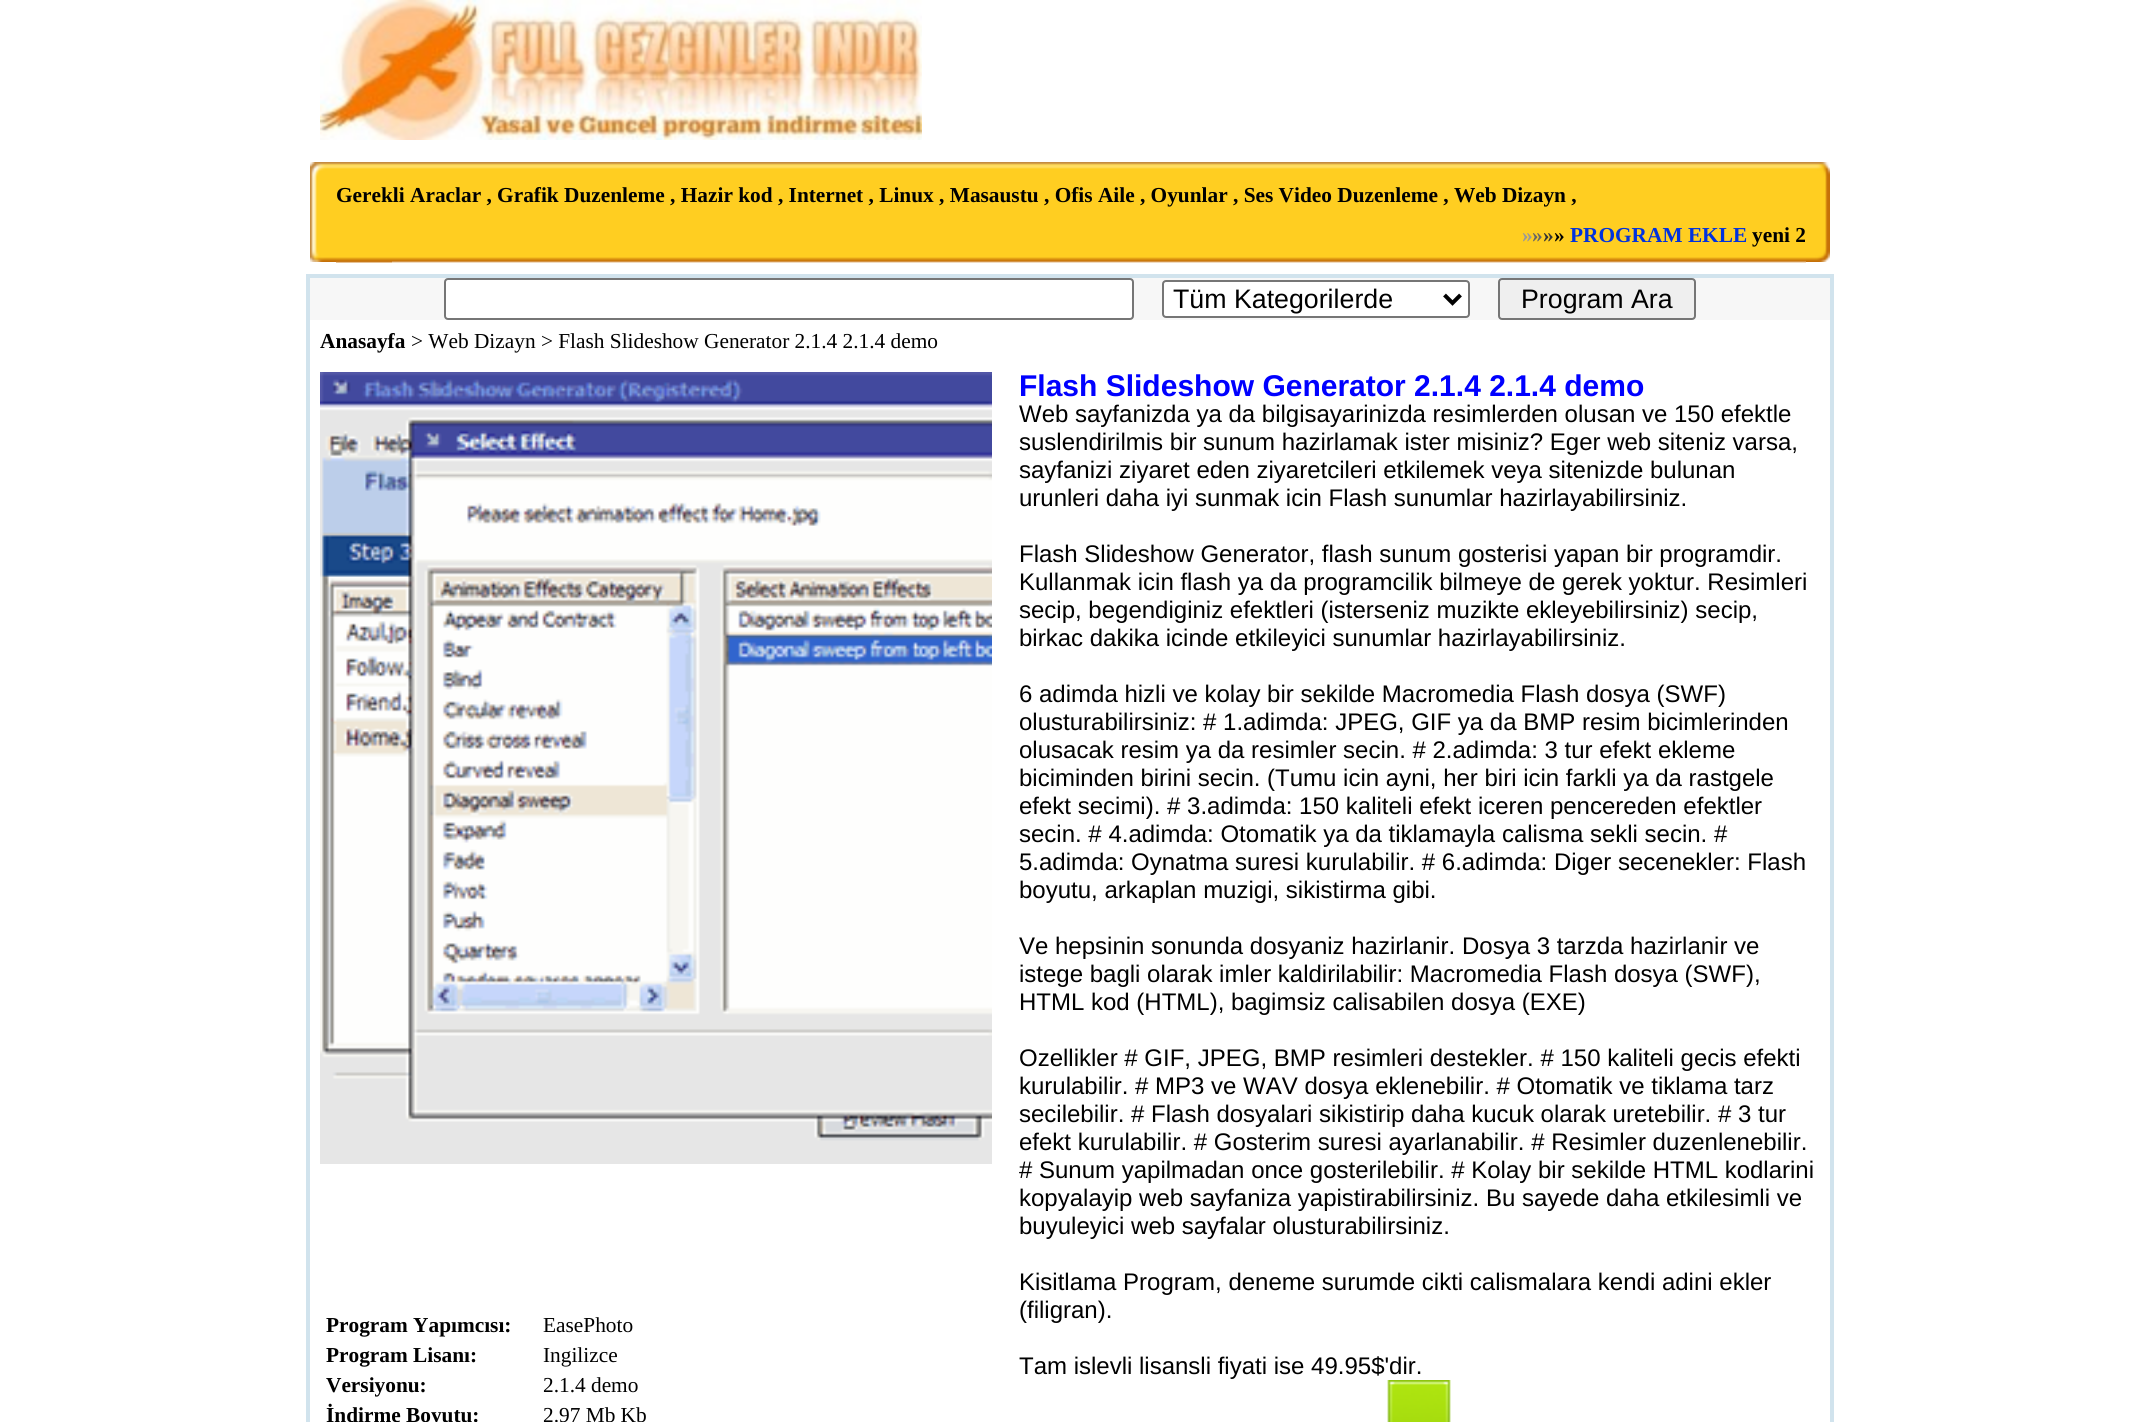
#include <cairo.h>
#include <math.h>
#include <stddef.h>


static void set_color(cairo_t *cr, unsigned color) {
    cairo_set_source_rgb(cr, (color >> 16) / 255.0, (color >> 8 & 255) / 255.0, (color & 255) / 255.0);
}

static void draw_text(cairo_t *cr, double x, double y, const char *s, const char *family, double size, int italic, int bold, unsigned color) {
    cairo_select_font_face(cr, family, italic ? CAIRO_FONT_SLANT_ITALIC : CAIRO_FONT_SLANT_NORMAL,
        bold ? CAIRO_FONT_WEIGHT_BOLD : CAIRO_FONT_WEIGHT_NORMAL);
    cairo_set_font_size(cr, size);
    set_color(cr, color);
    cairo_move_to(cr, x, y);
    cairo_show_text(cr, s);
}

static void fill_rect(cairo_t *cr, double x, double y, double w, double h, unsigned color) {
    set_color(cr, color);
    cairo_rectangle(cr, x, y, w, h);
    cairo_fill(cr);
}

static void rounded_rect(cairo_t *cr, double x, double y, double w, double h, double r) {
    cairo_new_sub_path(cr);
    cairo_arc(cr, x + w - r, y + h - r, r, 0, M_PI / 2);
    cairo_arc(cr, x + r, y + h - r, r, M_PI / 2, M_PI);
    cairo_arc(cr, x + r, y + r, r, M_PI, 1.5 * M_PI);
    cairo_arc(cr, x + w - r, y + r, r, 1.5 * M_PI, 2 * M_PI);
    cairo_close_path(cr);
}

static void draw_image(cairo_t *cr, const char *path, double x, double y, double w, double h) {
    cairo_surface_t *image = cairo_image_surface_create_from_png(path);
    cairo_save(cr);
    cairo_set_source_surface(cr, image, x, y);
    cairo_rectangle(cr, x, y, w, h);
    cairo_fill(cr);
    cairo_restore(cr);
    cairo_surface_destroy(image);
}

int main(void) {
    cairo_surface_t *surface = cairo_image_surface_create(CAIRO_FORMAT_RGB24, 2139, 1422);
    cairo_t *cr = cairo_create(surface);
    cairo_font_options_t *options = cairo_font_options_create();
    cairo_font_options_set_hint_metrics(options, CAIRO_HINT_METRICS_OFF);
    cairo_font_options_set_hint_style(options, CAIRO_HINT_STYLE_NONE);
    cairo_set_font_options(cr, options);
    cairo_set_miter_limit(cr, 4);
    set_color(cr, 0xFFFFFF);
    cairo_paint(cr);
    draw_image(cr, "assets/img1.png", 320, 0, 602, 140);
    draw_image(cr, "assets/img2.png", 310, 162, 26, 22);
    draw_image(cr, "assets/img3.png", 336, 162, 1470, 22);
    draw_image(cr, "assets/img4.png", 1806, 162, 24, 22);
    draw_image(cr, "assets/img5.png", 310, 184, 26, 22);
    fill_rect(cr, 336, 184, 1470, 22, 0xFFCE21);
    fill_rect(cr, 336, 206, 1470, 40, 0xFFCE21);
    draw_text(cr, 336, 202, "Gerekli Araclar , Grafik Duzenleme , Hazir kod , Internet , Linux , Masaustu , Ofis Aile , Oyunlar , Ses Video Duzenleme , Web Dizayn ,", "Liberation Serif", 21.33, 0, 1, 0x000000);
    draw_image(cr, "assets/img6.png", 1806, 184, 24, 22);
    draw_image(cr, "assets/img7.png", 310, 206, 26, 40);
    draw_image(cr, "assets/img8.png", 1806, 206, 24, 40);
    draw_text(cr, 1522, 242, "»", "Liberation Serif", 21.33, 0, 1, 0x999999);
    draw_text(cr, 1532, 242, "»", "Liberation Serif", 21.33, 0, 1, 0x666666);
    draw_text(cr, 1543, 242, "»", "Liberation Serif", 21.33, 0, 1, 0x333333);
    draw_text(cr, 1554, 242, "»", "Liberation Serif", 21.33, 0, 1, 0x000000);
    draw_text(cr, 1570, 242, "PROGRAM EKLE", "Liberation Serif", 21.33, 0, 1, 0x0031DE);
    draw_image(cr, "assets/img10.png", 336, 246, 1470, 17);
    draw_text(cr, 1752, 242, "yeni 2", "Liberation Serif", 21.33, 0, 1, 0x000000);
    draw_image(cr, "assets/img9.png", 310, 246, 26, 16);
    draw_image(cr, "assets/img11.png", 336, 261, 56, 2);
    draw_image(cr, "assets/img12.png", 1806, 246, 24, 16);
    fill_rect(cr, 310, 278, 1520, 42, 0xF7F7F7);
    cairo_rectangle(cr, 307, 275, 1526, 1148);
    set_color(cr, 0xD1E3ED);
    cairo_stroke(cr);
    cairo_rectangle(cr, 309, 277, 1522, 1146);
    cairo_stroke(cr);
    set_color(cr, 0xFFFFFF);
    rounded_rect(cr, 445, 279, 688, 40, 3);
    cairo_fill_preserve(cr);
    set_color(cr, 0x767676);
    cairo_stroke(cr);
    set_color(cr, 0xFFFFFF);
    rounded_rect(cr, 1163, 281, 306, 36, 3);
    cairo_fill_preserve(cr);
    set_color(cr, 0x767676);
    cairo_stroke(cr);
    cairo_new_path(cr);
    cairo_move_to(cr, 1444.5, 295);
    cairo_line_to(cr, 1452.5, 303);
    cairo_line_to(cr, 1460.5, 295);
    set_color(cr, 0x000000);
    cairo_set_line_width(cr, 4);
    cairo_stroke(cr);
    draw_text(cr, 1173, 308, "Tüm Kategorilerde", "Liberation Sans", 26.75, 0, 0, 0x000000);
    set_color(cr, 0xEFEFEF);
    rounded_rect(cr, 1499, 279, 196, 40, 3);
    cairo_fill_preserve(cr);
    set_color(cr, 0x767676);
    cairo_set_line_width(cr, 2);
    cairo_stroke(cr);
    draw_text(cr, 1521, 308, "Program Ara", "Liberation Sans", 26.75, 0, 0, 0x000000);
    draw_text(cr, 320, 348, "Anasayfa", "Liberation Serif", 21.33, 0, 1, 0x000000);
    draw_text(cr, 411, 348, "> Web Dizayn > Flash Slideshow Generator 2.1.4 2.1.4 demo", "Liberation Serif", 21.33, 0, 0, 0x000000);
    draw_text(cr, 326, 1332, "Program Yapımcısı:", "Liberation Serif", 21.33, 0, 1, 0x000000);
    draw_text(cr, 543, 1332, "EasePhoto", "Liberation Serif", 21.33, 0, 0, 0x000000);
    draw_text(cr, 326, 1362, "Program Lisanı:", "Liberation Serif", 21.33, 0, 1, 0x000000);
    draw_text(cr, 543, 1362, "Ingilizce", "Liberation Serif", 21.33, 0, 0, 0x000000);
    draw_text(cr, 326, 1392, "Versiyonu:", "Liberation Serif", 21.33, 0, 1, 0x000000);
    draw_text(cr, 543, 1392, "2.1.4 demo", "Liberation Serif", 21.33, 0, 0, 0x000000);
    draw_text(cr, 326, 1422, "İndirme Boyutu:", "Liberation Serif", 21.33, 0, 1, 0x000000);
    draw_text(cr, 543, 1422, "2.97 Mb Kb", "Liberation Serif", 21.33, 0, 0, 0x000000);
    draw_image(cr, "assets/img13.png", 320, 372, 672, 792);
    draw_text(cr, 1019, 396, "Flash Slideshow Generator 2.1.4 2.1.4 demo", "Liberation Sans", 30, 0, 1, 0x0000FF);
    draw_text(cr, 1019, 422, "Web sayfanizda ya da bilgisayarinizda resimlerden olusan ve 150 efektle", "Liberation Sans", 24, 0, 0, 0x000000);
    draw_text(cr, 1019, 450, "suslendirilmis bir sunum hazirlamak ister misiniz? Eger web siteniz varsa,", "Liberation Sans", 24, 0, 0, 0x000000);
    draw_text(cr, 1019, 478, "sayfanizi ziyaret eden ziyaretcileri etkilemek veya sitenizde bulunan", "Liberation Sans", 24, 0, 0, 0x000000);
    draw_text(cr, 1019, 506, "urunleri daha iyi sunmak icin Flash sunumlar hazirlayabilirsiniz.", "Liberation Sans", 24, 0, 0, 0x000000);
    draw_text(cr, 1019, 562, "Flash Slideshow Generator, flash sunum gosterisi yapan bir programdir.", "Liberation Sans", 24, 0, 0, 0x000000);
    draw_text(cr, 1019, 590, "Kullanmak icin flash ya da programcilik bilmeye de gerek yoktur. Resimleri", "Liberation Sans", 24, 0, 0, 0x000000);
    draw_text(cr, 1019, 618, "secip, begendiginiz efektleri (isterseniz muzikte ekleyebilirsiniz) secip,", "Liberation Sans", 24, 0, 0, 0x000000);
    draw_text(cr, 1019, 646, "birkac dakika icinde etkileyici sunumlar hazirlayabilirsiniz.", "Liberation Sans", 24, 0, 0, 0x000000);
    draw_text(cr, 1019, 702, "6 adimda hizli ve kolay bir sekilde Macromedia Flash dosya (SWF)", "Liberation Sans", 24, 0, 0, 0x000000);
    draw_text(cr, 1019, 730, "olusturabilirsiniz: # 1.adimda: JPEG, GIF ya da BMP resim bicimlerinden", "Liberation Sans", 24, 0, 0, 0x000000);
    draw_text(cr, 1019, 758, "olusacak resim ya da resimler secin. # 2.adimda: 3 tur efekt ekleme", "Liberation Sans", 24, 0, 0, 0x000000);
    draw_text(cr, 1019, 786, "biciminden birini secin. (Tumu icin ayni, her biri icin farkli ya da rastgele", "Liberation Sans", 24, 0, 0, 0x000000);
    draw_text(cr, 1019, 814, "efekt secimi). # 3.adimda: 150 kaliteli efekt iceren pencereden efektler", "Liberation Sans", 24, 0, 0, 0x000000);
    draw_text(cr, 1019, 842, "secin. # 4.adimda: Otomatik ya da tiklamayla calisma sekli secin. #", "Liberation Sans", 24, 0, 0, 0x000000);
    draw_text(cr, 1019, 870, "5.adimda: Oynatma suresi kurulabilir. # 6.adimda: Diger secenekler: Flash", "Liberation Sans", 24, 0, 0, 0x000000);
    draw_text(cr, 1019, 898, "boyutu, arkaplan muzigi, sikistirma gibi.", "Liberation Sans", 24, 0, 0, 0x000000);
    draw_text(cr, 1019, 954, "Ve hepsinin sonunda dosyaniz hazirlanir. Dosya 3 tarzda hazirlanir ve", "Liberation Sans", 24, 0, 0, 0x000000);
    draw_text(cr, 1019, 982, "istege bagli olarak imler kaldirilabilir: Macromedia Flash dosya (SWF),", "Liberation Sans", 24, 0, 0, 0x000000);
    draw_text(cr, 1019, 1010, "HTML kod (HTML), bagimsiz calisabilen dosya (EXE)", "Liberation Sans", 24, 0, 0, 0x000000);
    draw_text(cr, 1019, 1066, "Ozellikler # GIF, JPEG, BMP resimleri destekler. # 150 kaliteli gecis efekti", "Liberation Sans", 24, 0, 0, 0x000000);
    draw_text(cr, 1019, 1094, "kurulabilir. # MP3 ve WAV dosya eklenebilir. # Otomatik ve tiklama tarz", "Liberation Sans", 24, 0, 0, 0x000000);
    draw_text(cr, 1019, 1122, "secilebilir. # Flash dosyalari sikistirip daha kucuk olarak uretebilir. # 3 tur", "Liberation Sans", 24, 0, 0, 0x000000);
    draw_text(cr, 1019, 1150, "efekt kurulabilir. # Gosterim suresi ayarlanabilir. # Resimler duzenlenebilir.", "Liberation Sans", 24, 0, 0, 0x000000);
    draw_text(cr, 1019, 1178, "# Sunum yapilmadan once gosterilebilir. # Kolay bir sekilde HTML kodlarini", "Liberation Sans", 24, 0, 0, 0x000000);
    draw_text(cr, 1019, 1206, "kopyalayip web sayfaniza yapistirabilirsiniz. Bu sayede daha etkilesimli ve", "Liberation Sans", 24, 0, 0, 0x000000);
    draw_text(cr, 1019, 1234, "buyuleyici web sayfalar olusturabilirsiniz.", "Liberation Sans", 24, 0, 0, 0x000000);
    draw_text(cr, 1019, 1290, "Kisitlama Program, deneme surumde cikti calismalara kendi adini ekler", "Liberation Sans", 24, 0, 0, 0x000000);
    draw_text(cr, 1019, 1318, "(filigran).", "Liberation Sans", 24, 0, 0, 0x000000);
    draw_text(cr, 1019, 1374, "Tam islevli lisansli fiyati ise 49.95$'dir.", "Liberation Sans", 24, 0, 0, 0x000000);
    draw_image(cr, "assets/img14.png", 1387, 1380, 64, 42);
    cairo_surface_write_to_png(surface, "output.png");
    cairo_font_options_destroy(options);
    cairo_destroy(cr);
    cairo_surface_destroy(surface);
    return 0;
}
